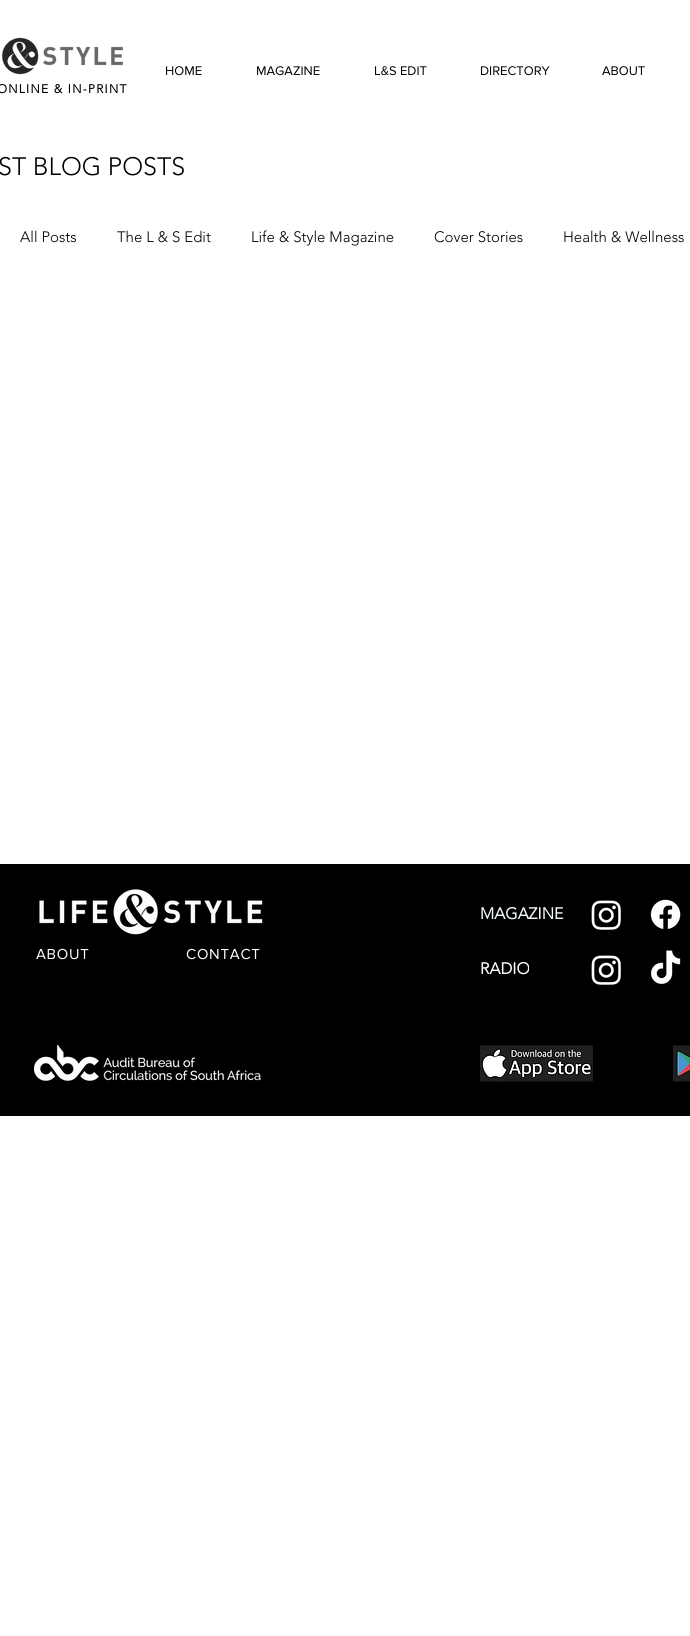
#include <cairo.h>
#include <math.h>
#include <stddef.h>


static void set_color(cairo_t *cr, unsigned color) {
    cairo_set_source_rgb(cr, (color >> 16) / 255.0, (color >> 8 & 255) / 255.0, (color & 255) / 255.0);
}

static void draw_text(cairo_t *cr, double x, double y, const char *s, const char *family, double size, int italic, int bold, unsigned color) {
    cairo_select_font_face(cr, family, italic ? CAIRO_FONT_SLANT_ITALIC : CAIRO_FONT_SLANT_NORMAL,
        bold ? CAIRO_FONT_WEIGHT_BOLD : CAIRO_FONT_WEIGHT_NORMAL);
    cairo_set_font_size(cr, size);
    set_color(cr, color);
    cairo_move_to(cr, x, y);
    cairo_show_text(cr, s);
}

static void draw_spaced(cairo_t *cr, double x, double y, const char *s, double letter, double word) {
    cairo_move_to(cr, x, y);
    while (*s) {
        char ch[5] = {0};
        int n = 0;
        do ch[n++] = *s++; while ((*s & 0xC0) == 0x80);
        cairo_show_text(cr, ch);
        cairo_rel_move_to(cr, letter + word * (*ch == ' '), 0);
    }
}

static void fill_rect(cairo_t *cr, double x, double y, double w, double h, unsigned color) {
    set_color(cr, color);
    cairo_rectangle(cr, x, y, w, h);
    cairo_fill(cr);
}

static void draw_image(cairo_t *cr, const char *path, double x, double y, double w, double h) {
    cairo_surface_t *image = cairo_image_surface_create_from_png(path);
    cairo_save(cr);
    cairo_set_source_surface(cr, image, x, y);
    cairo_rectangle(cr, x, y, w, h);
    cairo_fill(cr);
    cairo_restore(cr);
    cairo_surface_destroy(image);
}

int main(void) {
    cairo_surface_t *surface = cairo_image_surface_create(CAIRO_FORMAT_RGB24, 690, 1636);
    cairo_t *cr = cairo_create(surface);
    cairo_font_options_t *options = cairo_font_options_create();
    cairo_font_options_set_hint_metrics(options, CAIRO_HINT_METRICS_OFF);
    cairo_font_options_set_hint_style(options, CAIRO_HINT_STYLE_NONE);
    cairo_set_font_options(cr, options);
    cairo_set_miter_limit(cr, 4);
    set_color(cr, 0xFFFFFF);
    cairo_paint(cr);
    draw_text(cr, 165, 75, "HOME", "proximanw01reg", 13, 0, 0, 0x000000);
    draw_text(cr, 256, 75, "MAGAZINE", "proximanw01reg", 13, 0, 0, 0x000000);
    draw_text(cr, 374, 75, "L&S EDIT", "proximanw01reg", 13, 0, 0, 0x000000);
    draw_text(cr, 480, 75, "DIRECTORY", "proximanw01reg", 13, 0, 0, 0x000000);
    draw_text(cr, 602, 75, "ABOUT", "proximanw01reg", 13, 0, 0, 0x000000);
    draw_image(cr, "assets/img1.png", 2, 37, 121, 38);
    cairo_select_font_face(cr, "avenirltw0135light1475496", CAIRO_FONT_SLANT_NORMAL, CAIRO_FONT_WEIGHT_BOLD);
    cairo_set_font_size(cr, 12);
    draw_spaced(cr, -3, 93, "ONLINE & IN-PRINT", 1.25, 0);
    draw_text(cr, -2, 175, "ST BLOG POSTS", "avenirltw0135light1475496 Light", 25, 0, 0, 0x000000);
    draw_text(cr, 20, 242, "All Posts", "avenirltw0135light1475496 Light", 15, 0, 0, 0x000000);
    draw_text(cr, 117, 242, "The L & S Edit", "avenirltw0135light1475496 Light", 15, 0, 0, 0x000000);
    draw_text(cr, 251, 242, "Life & Style Magazine", "avenirltw0135light1475496 Light", 15, 0, 0, 0x000000);
    draw_text(cr, 434, 242, "Cover Stories", "avenirltw0135light1475496 Light", 15, 0, 0, 0x000000);
    draw_text(cr, 563, 242, "Health & Wellness", "avenirltw0135light1475496 Light", 15, 0, 0, 0x000000);
    fill_rect(cr, 0, 864, 690, 252, 0x000000);
    draw_image(cr, "assets/img2.png", 39, 889, 224, 46);
    draw_text(cr, 480, 919, "MAGAZINE", "avenirltw0135light1475496", 16, 0, 1, 0xF2FAF9);
    draw_image(cr, "assets/img3.png", 591, 900, 30, 30);
    draw_image(cr, "assets/img4.png", 650, 899, 31, 30);
    draw_text(cr, 480, 974, "RADIO", "avenirltw0135light1475496", 16, 0, 1, 0xFFFFFF);
    draw_image(cr, "assets/img3.png", 591, 955, 30, 30);
    draw_image(cr, "assets/img5.png", 650, 950, 31, 34);
    cairo_select_font_face(cr, "proximanw01reg", CAIRO_FONT_SLANT_NORMAL, CAIRO_FONT_WEIGHT_NORMAL);
    cairo_set_font_size(cr, 15);
    draw_spaced(cr, 36, 959, "ABOUT", 0.75, 0);
    draw_spaced(cr, 186, 959, "CONTACT", 0.75, 0);
    draw_image(cr, "assets/img6.png", 34, 1045, 227, 36);
    draw_image(cr, "assets/img7.png", 480, 1045, 113, 37);
    draw_image(cr, "assets/img8.png", 673, 1045, 17, 37);
    cairo_surface_write_to_png(surface, "output.png");
    cairo_font_options_destroy(options);
    cairo_destroy(cr);
    cairo_surface_destroy(surface);
    return 0;
}
